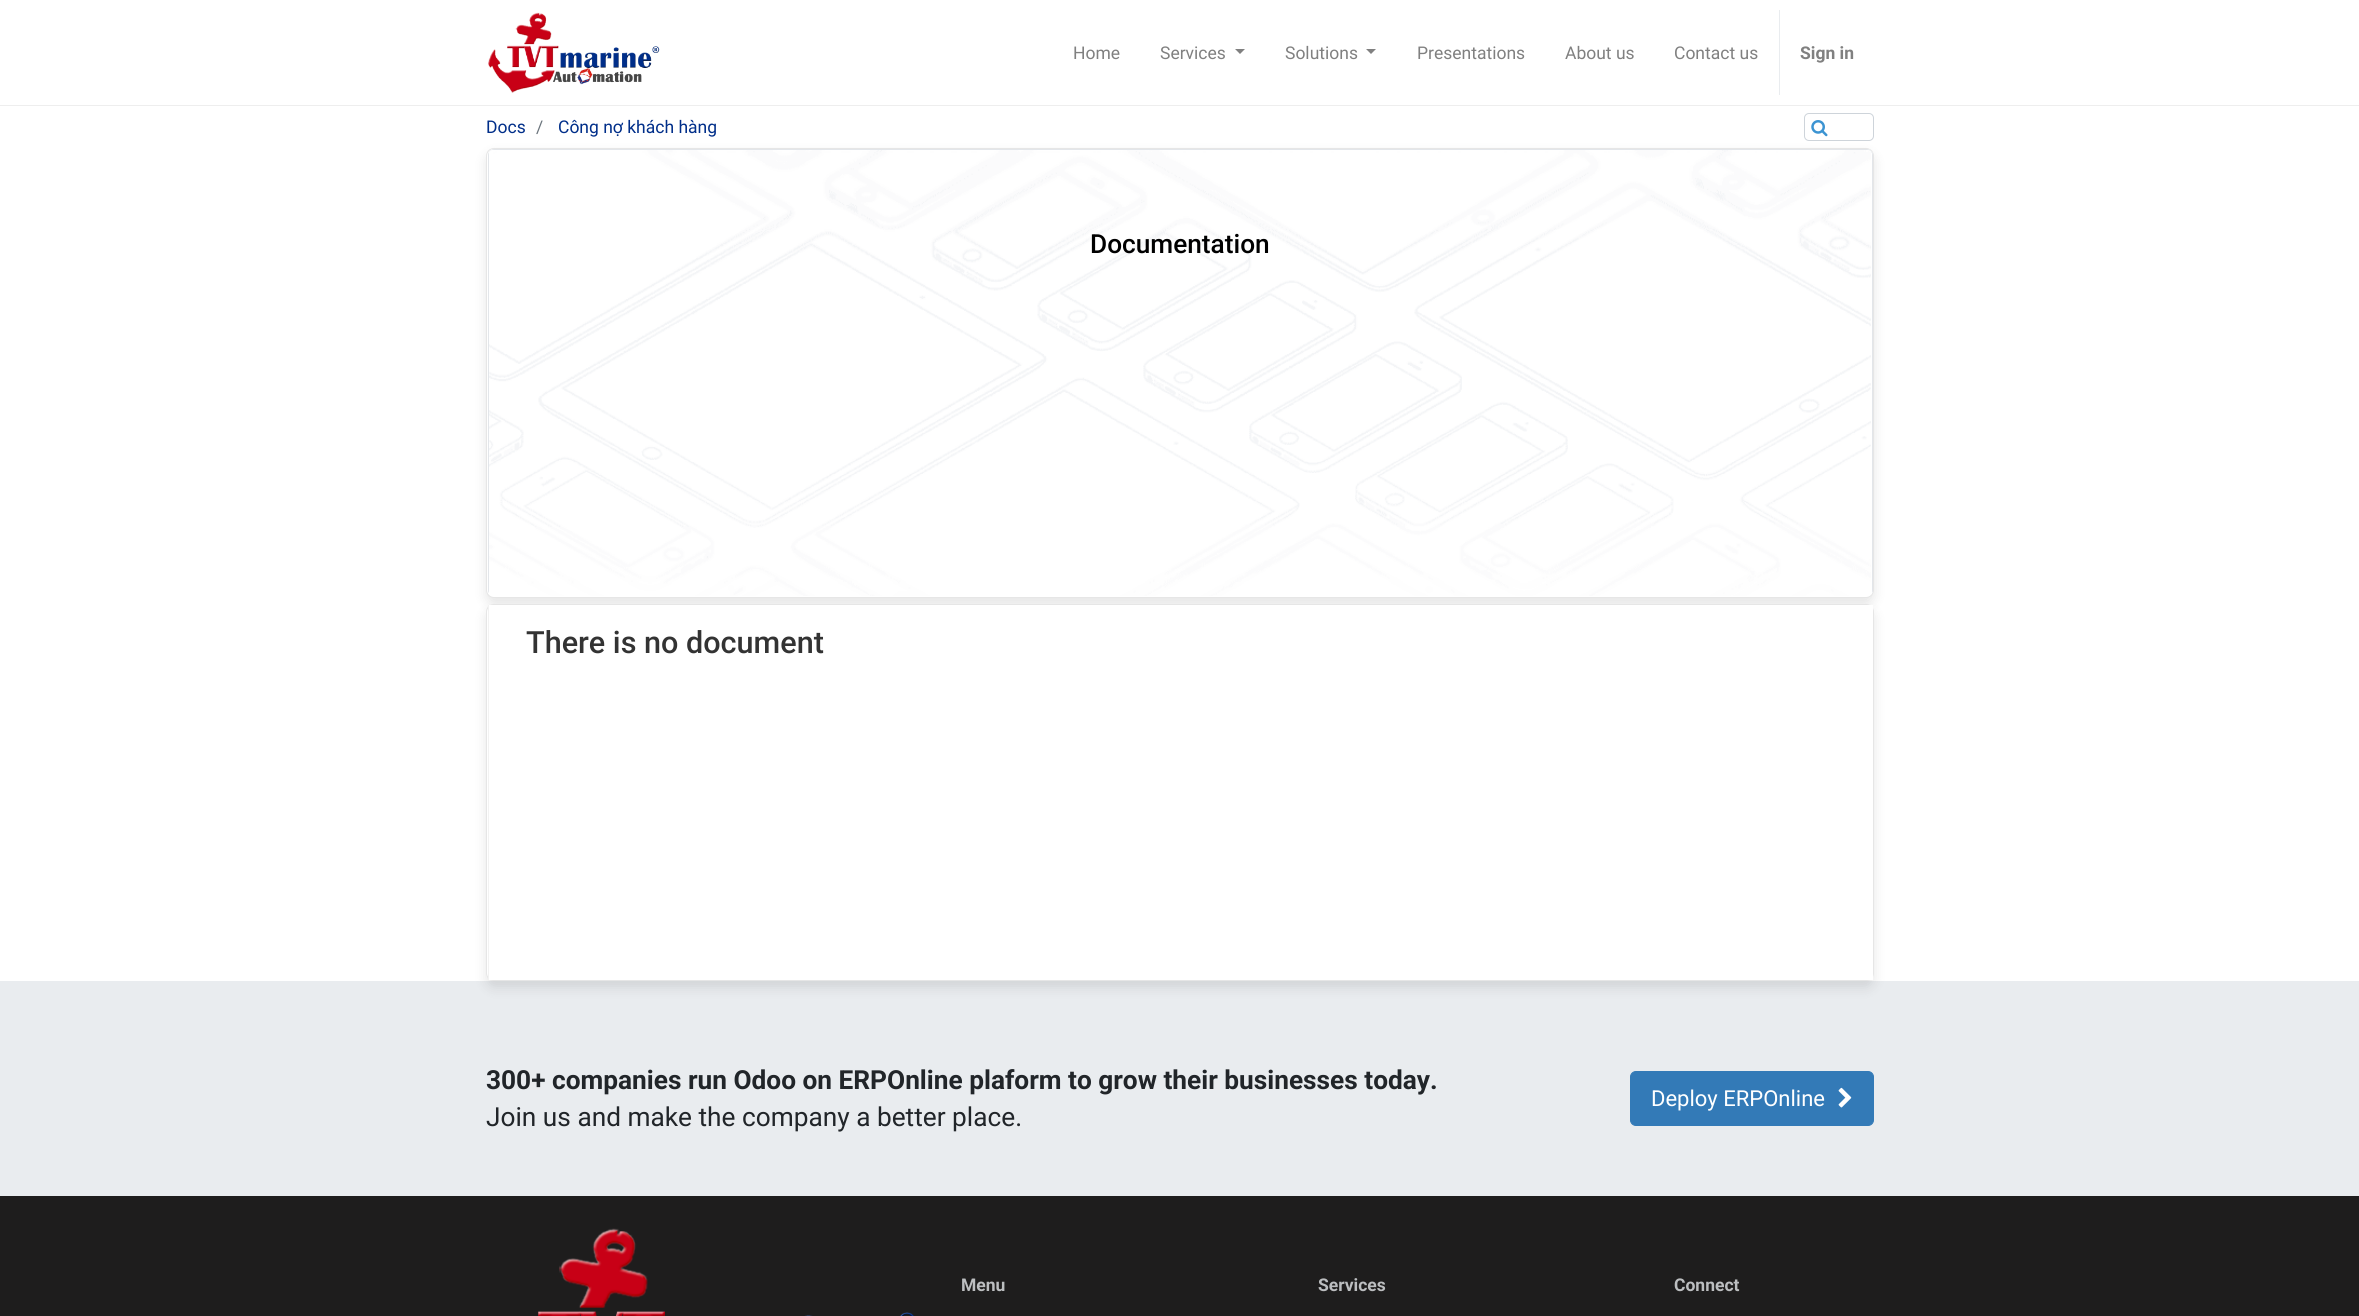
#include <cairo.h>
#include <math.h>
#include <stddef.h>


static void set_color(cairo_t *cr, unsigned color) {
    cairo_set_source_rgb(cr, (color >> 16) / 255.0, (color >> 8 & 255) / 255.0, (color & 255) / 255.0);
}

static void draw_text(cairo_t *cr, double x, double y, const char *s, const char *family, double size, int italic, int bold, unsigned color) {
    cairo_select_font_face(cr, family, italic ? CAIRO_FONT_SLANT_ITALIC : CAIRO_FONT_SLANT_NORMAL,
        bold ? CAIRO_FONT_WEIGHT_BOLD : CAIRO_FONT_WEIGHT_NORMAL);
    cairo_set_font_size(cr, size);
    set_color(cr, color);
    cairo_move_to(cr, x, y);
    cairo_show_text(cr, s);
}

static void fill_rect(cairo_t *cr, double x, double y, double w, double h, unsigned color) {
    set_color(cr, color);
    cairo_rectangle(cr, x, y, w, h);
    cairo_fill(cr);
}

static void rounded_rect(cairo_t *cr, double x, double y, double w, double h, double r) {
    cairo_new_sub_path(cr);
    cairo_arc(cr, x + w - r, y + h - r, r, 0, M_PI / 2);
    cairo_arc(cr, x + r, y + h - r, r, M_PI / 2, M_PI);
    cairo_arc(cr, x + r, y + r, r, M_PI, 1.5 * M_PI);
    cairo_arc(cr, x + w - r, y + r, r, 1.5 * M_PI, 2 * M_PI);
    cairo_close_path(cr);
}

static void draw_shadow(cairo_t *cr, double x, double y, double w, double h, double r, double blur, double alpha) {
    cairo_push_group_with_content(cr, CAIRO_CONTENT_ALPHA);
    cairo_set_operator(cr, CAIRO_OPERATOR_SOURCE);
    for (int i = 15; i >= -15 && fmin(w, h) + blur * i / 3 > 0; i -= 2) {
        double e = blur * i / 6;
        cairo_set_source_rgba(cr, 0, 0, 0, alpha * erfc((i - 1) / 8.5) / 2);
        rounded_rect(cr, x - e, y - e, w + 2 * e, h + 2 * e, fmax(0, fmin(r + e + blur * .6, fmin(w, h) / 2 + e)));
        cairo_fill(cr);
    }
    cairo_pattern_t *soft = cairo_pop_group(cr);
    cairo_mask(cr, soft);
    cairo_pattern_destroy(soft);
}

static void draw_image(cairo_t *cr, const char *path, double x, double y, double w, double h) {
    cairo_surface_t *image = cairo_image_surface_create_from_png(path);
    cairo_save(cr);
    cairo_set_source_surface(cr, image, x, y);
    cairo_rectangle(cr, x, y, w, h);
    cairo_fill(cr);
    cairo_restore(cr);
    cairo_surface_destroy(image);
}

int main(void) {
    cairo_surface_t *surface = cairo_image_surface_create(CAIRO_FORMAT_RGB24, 2359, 1316);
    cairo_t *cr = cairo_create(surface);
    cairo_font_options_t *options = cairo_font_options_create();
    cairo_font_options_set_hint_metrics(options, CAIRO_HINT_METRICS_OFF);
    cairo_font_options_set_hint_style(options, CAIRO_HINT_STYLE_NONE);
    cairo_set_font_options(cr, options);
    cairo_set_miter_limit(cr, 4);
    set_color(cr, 0xFFFFFF);
    cairo_paint(cr);
    draw_image(cr, "assets/img1.png", 488, 12, 172, 81);
    draw_text(cr, 1073, 59, "Home", "Roboto", 17.5, 0, 0, 0x808080);
    draw_text(cr, 1160, 59, "Services", "Roboto", 17.5, 0, 0, 0x808080);
    cairo_new_path(cr);
    cairo_move_to(cr, 1235, 49);
    cairo_line_to(cr, 1245, 49);
    cairo_line_to(cr, 1240, 54);
    cairo_close_path(cr);
    cairo_fill(cr);
    draw_text(cr, 1285, 59, "Solutions", "Roboto", 17.5, 0, 0, 0x808080);
    cairo_new_path(cr);
    cairo_move_to(cr, 1366, 49);
    cairo_line_to(cr, 1376, 49);
    cairo_line_to(cr, 1371, 54);
    cairo_close_path(cr);
    cairo_fill(cr);
    draw_text(cr, 1417, 59, "Presentations", "Roboto", 17.5, 0, 0, 0x808080);
    draw_text(cr, 1565, 59, "About us", "Roboto", 17.5, 0, 0, 0x808080);
    draw_text(cr, 1674, 59, "Contact us", "Roboto", 17.5, 0, 0, 0x808080);
    fill_rect(cr, 1779, 10, 1, 85, 0xE9ECEF);
    draw_text(cr, 1800, 59, "Sign in", "Roboto", 17.5, 0, 1, 0x808080);
    fill_rect(cr, 0, 105, 2359, 1, 0xEEEEEE);
    draw_text(cr, 486, 133, "Docs", "Roboto", 17.5, 0, 0, 0x002E89);
    draw_text(cr, 536, 133, "/", "Roboto", 17.5, 0, 0, 0x6C757D);
    draw_text(cr, 558, 133, "Công nợ khách hàng", "Roboto", 17.5, 0, 0, 0x002E89);
    rounded_rect(cr, 1804.5, 113.5, 69, 27, 4.5);
    set_color(cr, 0xCED4DA);
    cairo_set_line_width(cr, 1);
    cairo_stroke(cr);
    draw_image(cr, "assets/img2.png", 1811, 120, 17, 17);
    set_color(cr, 0x000000);
    draw_shadow(cr, 486, 154, 1388, 450, 8, 6, 0.1);
    set_color(cr, 0xFFFFFF);
    rounded_rect(cr, 486, 148, 1388, 450, 8);
    cairo_fill(cr);
    rounded_rect(cr, 486.5, 148.5, 1387, 449, 7.5);
    cairo_set_source_rgba(cr, 0, 0, 0, 0.1);
    cairo_stroke(cr);
    cairo_set_source_rgba(cr, 1, 1, 1, 0.85);
    rounded_rect(cr, 488, 149, 1385, 447, 6);
    cairo_fill(cr);
    cairo_set_source_rgba(cr, 0.871, 0.886, 0.902, 0.85);
    cairo_new_path(cr);
    cairo_move_to(cr, 493, 150);
    cairo_line_to(cr, 1868, 150);
    cairo_curve_to(cr, 1870, 150, 1872, 152, 1872, 154);
    cairo_line_to(cr, 1872, 593);
    cairo_curve_to(cr, 1873, 592, 1873, 591, 1873, 590);
    cairo_line_to(cr, 1873, 155);
    cairo_curve_to(cr, 1873, 152, 1870, 149, 1867, 149);
    cairo_line_to(cr, 494, 149);
    cairo_curve_to(cr, 491, 149, 488, 152, 488, 155);
    cairo_line_to(cr, 488, 590);
    cairo_curve_to(cr, 488, 591, 488, 592, 489, 593);
    cairo_line_to(cr, 489, 154);
    cairo_curve_to(cr, 489, 152, 491, 150, 493, 150);
    cairo_close_path(cr);
    cairo_fill(cr);
    draw_image(cr, "assets/img3.png", 489, 150, 1382, 446);
    draw_text(cr, 1090, 253, "Documentation", "Roboto Medium", 26.25, 0, 0, 0x000000);
    fill_rect(cr, 0, 981, 2359, 215, 0xE9ECEF);
    set_color(cr, 0x000000);
    draw_shadow(cr, 486, 610, 1388, 378, 8, 6, 0.1);
    set_color(cr, 0xFFFFFF);
    rounded_rect(cr, 486, 604, 1388, 377, 8);
    cairo_fill(cr);
    rounded_rect(cr, 486.5, 604.5, 1387, 376, 7.5);
    cairo_set_source_rgba(cr, 0, 0, 0, 0.1);
    cairo_stroke(cr);
    fill_rect(cr, 489, 605, 1384, 375, 0xFFFFFF);
    fill_rect(cr, 488, 605, 1, 375, 0xF2F2F2);
    draw_text(cr, 526, 653, "There is no document", "Roboto Medium", 30.6, 0, 0, 0x333333);
    draw_text(cr, 486, 1089, "300+ companies run Odoo on ERPOnline plaform to grow their businesses today.", "Roboto", 26.25, 0, 1, 0x212529);
    draw_text(cr, 486, 1126, "Join us and make the company a better place.", "Roboto", 26.25, 0, 0, 0x212529);
    set_color(cr, 0x337AB7);
    rounded_rect(cr, 1630.5, 1071.5, 243, 54, 5.5);
    cairo_fill_preserve(cr);
    cairo_stroke(cr);
    draw_text(cr, 1651, 1106, "Deploy ERPOnline", "Roboto", 22, 0, 0, 0xFFFFFF);
    draw_image(cr, "assets/img4.png", 1838, 1087, 14, 21);
    fill_rect(cr, 0, 1196, 2359, 120, 0x1E1D1D);
    draw_image(cr, "assets/img5.png", 538, 1228, 376, 88);
    draw_text(cr, 961, 1291, "Menu", "Roboto", 17.5, 0, 1, 0xBCBEC0);
    draw_text(cr, 1318, 1291, "Services", "Roboto", 17.5, 0, 1, 0xBCBEC0);
    draw_text(cr, 1674, 1291, "Connect", "Roboto", 17.5, 0, 1, 0xBCBEC0);
    cairo_surface_write_to_png(surface, "output.png");
    cairo_font_options_destroy(options);
    cairo_destroy(cr);
    cairo_surface_destroy(surface);
    return 0;
}
